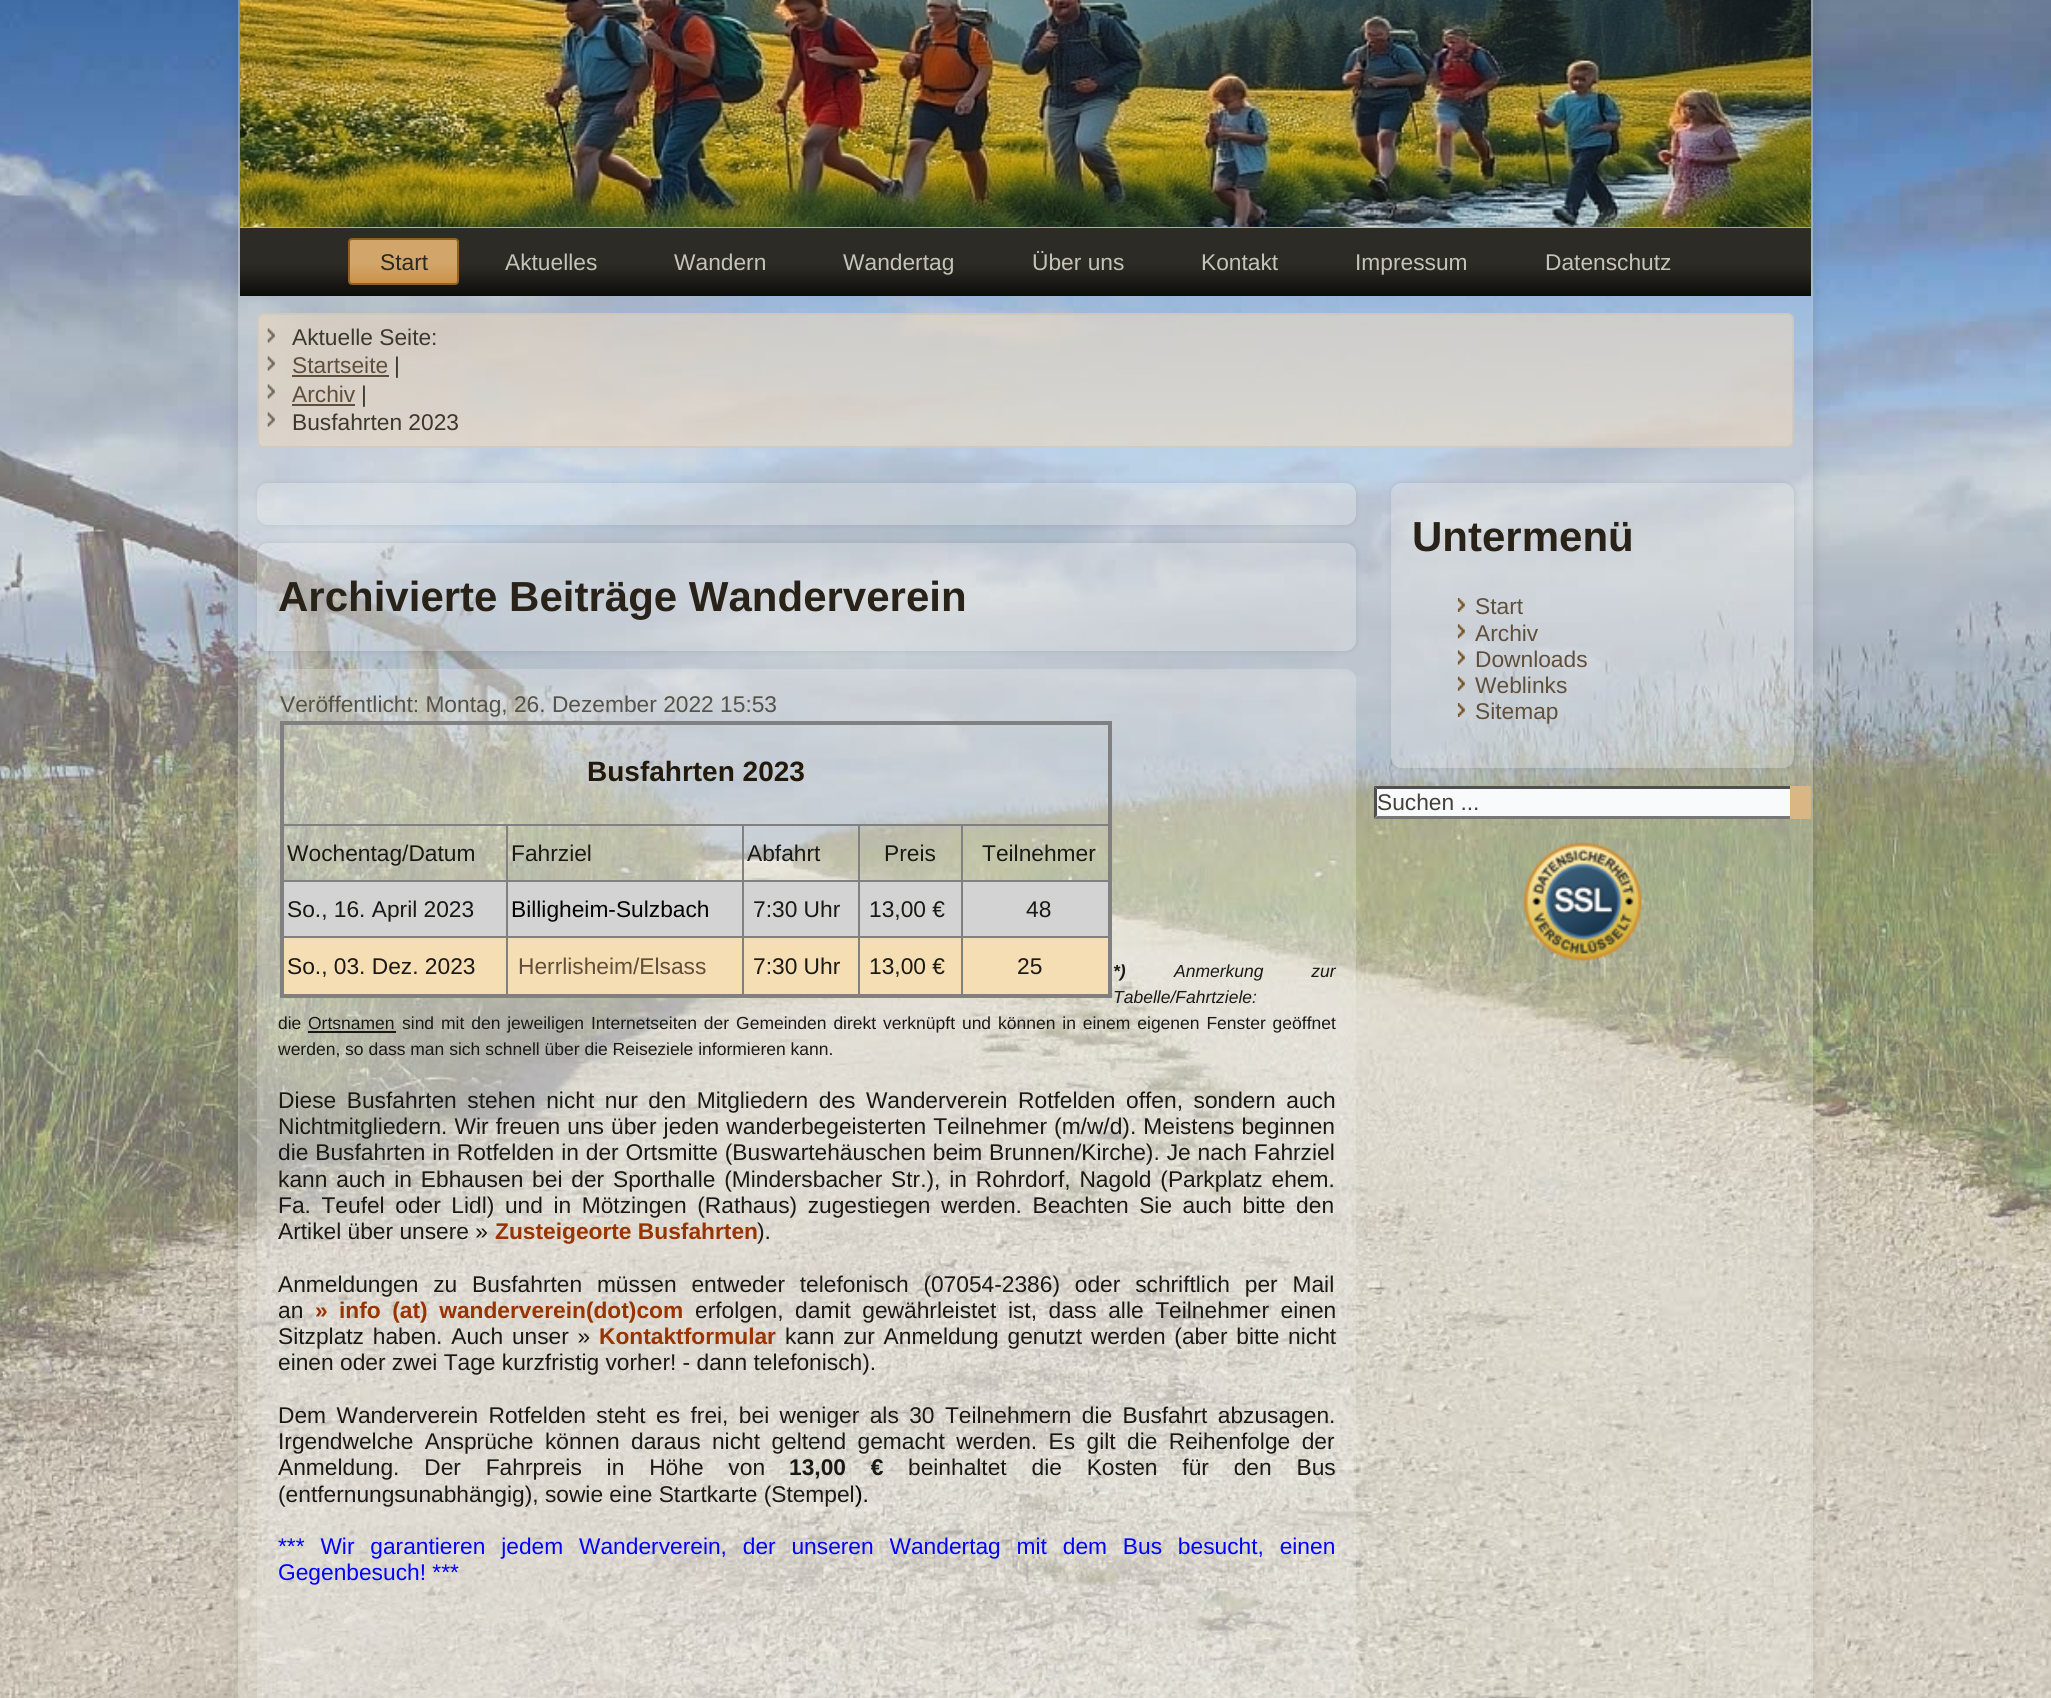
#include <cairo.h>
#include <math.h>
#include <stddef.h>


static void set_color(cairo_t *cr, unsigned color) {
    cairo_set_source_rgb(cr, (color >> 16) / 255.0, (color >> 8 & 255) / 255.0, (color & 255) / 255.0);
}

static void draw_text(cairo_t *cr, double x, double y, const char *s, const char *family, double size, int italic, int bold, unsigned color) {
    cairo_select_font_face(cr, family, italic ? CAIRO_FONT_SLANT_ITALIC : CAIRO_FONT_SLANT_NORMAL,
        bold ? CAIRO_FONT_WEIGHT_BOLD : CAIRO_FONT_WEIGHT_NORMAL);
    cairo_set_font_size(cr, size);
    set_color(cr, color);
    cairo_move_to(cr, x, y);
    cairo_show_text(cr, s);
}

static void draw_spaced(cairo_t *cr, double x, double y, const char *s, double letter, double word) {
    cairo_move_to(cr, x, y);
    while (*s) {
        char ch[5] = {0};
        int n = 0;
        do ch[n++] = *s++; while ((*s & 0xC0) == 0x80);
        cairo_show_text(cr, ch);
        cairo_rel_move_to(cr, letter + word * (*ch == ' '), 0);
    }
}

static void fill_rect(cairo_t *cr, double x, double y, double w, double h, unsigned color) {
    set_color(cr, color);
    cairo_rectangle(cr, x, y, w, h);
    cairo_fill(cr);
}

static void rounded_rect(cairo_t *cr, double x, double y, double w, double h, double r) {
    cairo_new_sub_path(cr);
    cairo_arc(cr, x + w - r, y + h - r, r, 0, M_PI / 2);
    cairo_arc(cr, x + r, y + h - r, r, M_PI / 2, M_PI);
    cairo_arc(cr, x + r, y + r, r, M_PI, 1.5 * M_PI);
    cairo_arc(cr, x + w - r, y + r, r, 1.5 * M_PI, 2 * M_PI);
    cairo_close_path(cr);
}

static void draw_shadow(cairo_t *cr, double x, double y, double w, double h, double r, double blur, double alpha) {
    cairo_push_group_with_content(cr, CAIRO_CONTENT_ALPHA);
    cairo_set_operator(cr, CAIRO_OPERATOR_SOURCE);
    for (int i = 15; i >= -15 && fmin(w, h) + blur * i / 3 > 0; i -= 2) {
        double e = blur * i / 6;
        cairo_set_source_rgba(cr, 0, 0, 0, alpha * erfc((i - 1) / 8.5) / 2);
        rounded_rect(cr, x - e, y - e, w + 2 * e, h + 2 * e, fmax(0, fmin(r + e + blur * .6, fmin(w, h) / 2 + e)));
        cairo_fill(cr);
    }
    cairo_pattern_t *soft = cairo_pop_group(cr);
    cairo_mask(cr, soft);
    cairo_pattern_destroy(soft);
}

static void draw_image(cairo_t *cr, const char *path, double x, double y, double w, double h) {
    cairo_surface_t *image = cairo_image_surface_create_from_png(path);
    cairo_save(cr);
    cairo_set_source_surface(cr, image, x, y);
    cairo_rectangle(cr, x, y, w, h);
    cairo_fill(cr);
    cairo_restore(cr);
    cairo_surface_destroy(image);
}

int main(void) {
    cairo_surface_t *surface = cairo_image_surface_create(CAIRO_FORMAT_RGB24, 2051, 1698);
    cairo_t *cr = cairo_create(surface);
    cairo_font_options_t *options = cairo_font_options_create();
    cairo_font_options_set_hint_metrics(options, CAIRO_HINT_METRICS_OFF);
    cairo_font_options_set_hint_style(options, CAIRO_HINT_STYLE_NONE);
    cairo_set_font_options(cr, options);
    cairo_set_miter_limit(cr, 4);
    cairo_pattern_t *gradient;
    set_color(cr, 0xFFFFFF);
    cairo_paint(cr);
    draw_image(cr, "assets/img1.png", 0, 0, 2051, 1698);
    cairo_save(cr);
    cairo_set_fill_rule(cr, CAIRO_FILL_RULE_EVEN_ODD);
    cairo_new_path(cr);
    cairo_move_to(cr, 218, 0);
    cairo_line_to(cr, 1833, 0);
    cairo_line_to(cr, 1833, 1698);
    cairo_line_to(cr, 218, 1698);
    cairo_close_path(cr);
    cairo_move_to(cr, 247, -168);
    cairo_line_to(cr, 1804, -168);
    cairo_curve_to(cr, 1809, -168, 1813, -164, 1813, -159);
    cairo_line_to(cr, 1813, 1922);
    cairo_line_to(cr, 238, 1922);
    cairo_line_to(cr, 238, -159);
    cairo_curve_to(cr, 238, -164, 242, -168, 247, -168);
    cairo_close_path(cr);
    cairo_clip(cr);
    set_color(cr, 0x000000);
    draw_shadow(cr, 233, -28, 1585, 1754, 14, 4.5, 0.06);
    cairo_restore(cr);
    cairo_set_source_rgba(cr, 1, 1, 1, 0.2);
    cairo_rectangle(cr, 238, 0, 1575, 1698);
    cairo_fill(cr);
    cairo_set_source_rgba(cr, 0.784, 0.773, 0.737, 0.2);
    cairo_set_fill_rule(cr, CAIRO_FILL_RULE_EVEN_ODD);
    cairo_new_path(cr);
    cairo_move_to(cr, 247, -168);
    cairo_line_to(cr, 1804, -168);
    cairo_curve_to(cr, 1809, -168, 1813, -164, 1813, -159);
    cairo_line_to(cr, 1813, 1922);
    cairo_line_to(cr, 238, 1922);
    cairo_line_to(cr, 238, -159);
    cairo_curve_to(cr, 238, -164, 242, -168, 247, -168);
    cairo_close_path(cr);
    cairo_move_to(cr, 247, -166);
    cairo_line_to(cr, 1804, -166);
    cairo_curve_to(cr, 1808, -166, 1811, -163, 1811, -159);
    cairo_line_to(cr, 1811, 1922);
    cairo_line_to(cr, 240, 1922);
    cairo_line_to(cr, 240, -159);
    cairo_curve_to(cr, 240, -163, 243, -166, 247, -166);
    cairo_close_path(cr);
    cairo_fill(cr);
    draw_image(cr, "assets/img2.png", 239, 0, 1573, 227);
    gradient = cairo_pattern_create_linear(1026, 227, 1026, 296);
    cairo_pattern_add_color_stop_rgba(gradient, 0, 0.176, 0.169, 0.145, 1);
    cairo_pattern_add_color_stop_rgba(gradient, 0.5, 0.176, 0.169, 0.145, 1);
    cairo_pattern_add_color_stop_rgba(gradient, 0.6, 0.165, 0.157, 0.133, 1);
    cairo_pattern_add_color_stop_rgba(gradient, 1, 0.043, 0.043, 0.035, 1);
    cairo_set_source(cr, gradient);
    cairo_pattern_destroy(gradient);
    cairo_rectangle(cr, 240, 228, 1571, 68);
    cairo_fill(cr);
    gradient = cairo_pattern_create_linear(403, 238, 403, 285);
    cairo_pattern_add_color_stop_rgba(gradient, 0, 0.824, 0.647, 0.416, 1);
    cairo_pattern_add_color_stop_rgba(gradient, 0.5, 0.824, 0.647, 0.416, 1);
    cairo_pattern_add_color_stop_rgba(gradient, 0.6, 0.82, 0.639, 0.4, 1);
    cairo_pattern_add_color_stop_rgba(gradient, 1, 0.784, 0.565, 0.275, 1);
    cairo_set_source(cr, gradient);
    cairo_pattern_destroy(gradient);
    rounded_rect(cr, 349, 239, 109, 45, 3);
    cairo_fill_preserve(cr);
    set_color(cr, 0x8D622A);
    cairo_stroke(cr);
    draw_text(cr, 380, 270, "Start", "Liberation Sans", 22.75, 0, 0, 0x2A2822);
    draw_text(cr, 505, 270, "Aktuelles", "Liberation Sans", 22.75, 0, 0, 0xC6C3B9);
    draw_text(cr, 674, 270, "Wandern", "Liberation Sans", 22.75, 0, 0, 0xC6C3B9);
    draw_text(cr, 843, 270, "Wandertag", "Liberation Sans", 22.75, 0, 0, 0xC6C3B9);
    draw_text(cr, 1032, 270, "Über uns", "Liberation Sans", 22.75, 0, 0, 0xC6C3B9);
    draw_text(cr, 1201, 270, "Kontakt", "Liberation Sans", 22.75, 0, 0, 0xC6C3B9);
    draw_text(cr, 1355, 270, "Impressum", "Liberation Sans", 22.75, 0, 0, 0xC6C3B9);
    draw_text(cr, 1545, 270, "Datenschutz", "Liberation Sans", 22.75, 0, 0, 0xC6C3B9);
    cairo_set_source_rgba(cr, 0.925, 0.851, 0.753, 0.6);
    rounded_rect(cr, 257, 313, 1537, 135, 7);
    cairo_fill(cr);
    rounded_rect(cr, 258, 314, 1535, 133, 6);
    cairo_set_source_rgba(cr, 0.784, 0.773, 0.737, 0.6);
    cairo_stroke(cr);
    draw_image(cr, "assets/img3.png", 267, 328, 8, 15);
    draw_text(cr, 292, 345, "Aktuelle Seite:", "Liberation Sans", 22.75, 0, 0, 0x3B3830);
    draw_image(cr, "assets/img4.png", 267, 356, 8, 15);
    draw_text(cr, 292, 373, "Startseite", "Liberation Sans", 22.75, 0, 0, 0x5F4E3A);
    fill_rect(cr, 292, 375, 97, 2, 0x5F4E3A);
    draw_text(cr, 394, 373, "|", "Liberation Sans", 22.75, 0, 0, 0x3B3830);
    draw_image(cr, "assets/img5.png", 267, 384, 8, 15);
    draw_text(cr, 292, 402, "Archiv", "Liberation Sans", 22.75, 0, 0, 0x5F4E3A);
    fill_rect(cr, 292, 404, 63, 2, 0x5F4E3A);
    draw_text(cr, 361, 402, "|", "Liberation Sans", 22.75, 0, 0, 0x3B3830);
    draw_image(cr, "assets/img6.png", 267, 412, 8, 15);
    draw_text(cr, 292, 430, "Busfahrten 2023", "Liberation Sans", 22.75, 0, 0, 0x3B3830);
    cairo_save(cr);
    cairo_new_path(cr);
    cairo_move_to(cr, 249, 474);
    cairo_line_to(cr, 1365, 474);
    cairo_line_to(cr, 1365, 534);
    cairo_line_to(cr, 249, 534);
    cairo_close_path(cr);
    cairo_move_to(cr, 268, 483);
    cairo_line_to(cr, 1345, 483);
    cairo_curve_to(cr, 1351, 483, 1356, 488, 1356, 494);
    cairo_line_to(cr, 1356, 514);
    cairo_curve_to(cr, 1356, 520, 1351, 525, 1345, 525);
    cairo_line_to(cr, 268, 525);
    cairo_curve_to(cr, 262, 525, 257, 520, 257, 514);
    cairo_line_to(cr, 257, 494);
    cairo_curve_to(cr, 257, 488, 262, 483, 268, 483);
    cairo_close_path(cr);
    cairo_clip(cr);
    set_color(cr, 0x000000);
    draw_shadow(cr, 256, 481, 1102, 46, 12, 2, 0.06);
    cairo_restore(cr);
    cairo_set_source_rgba(cr, 0.937, 0.933, 0.922, 0.3);
    rounded_rect(cr, 257, 483, 1099, 42, 11);
    cairo_fill(cr);
    cairo_save(cr);
    cairo_new_path(cr);
    cairo_move_to(cr, 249, 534);
    cairo_line_to(cr, 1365, 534);
    cairo_line_to(cr, 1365, 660);
    cairo_line_to(cr, 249, 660);
    cairo_close_path(cr);
    cairo_move_to(cr, 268, 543);
    cairo_line_to(cr, 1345, 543);
    cairo_curve_to(cr, 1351, 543, 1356, 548, 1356, 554);
    cairo_line_to(cr, 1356, 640);
    cairo_curve_to(cr, 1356, 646, 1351, 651, 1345, 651);
    cairo_line_to(cr, 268, 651);
    cairo_curve_to(cr, 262, 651, 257, 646, 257, 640);
    cairo_line_to(cr, 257, 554);
    cairo_curve_to(cr, 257, 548, 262, 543, 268, 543);
    cairo_close_path(cr);
    cairo_clip(cr);
    set_color(cr, 0x000000);
    draw_shadow(cr, 256, 541, 1102, 112, 12, 2, 0.06);
    cairo_restore(cr);
    rounded_rect(cr, 257, 543, 1099, 108, 11);
    cairo_fill(cr);
    draw_text(cr, 278, 611, "Archivierte Beiträge Wanderverein", "Liberation Sans", 42, 0, 1, 0x292219);
    cairo_set_source_rgba(cr, 0.937, 0.933, 0.922, 0.3);
    rounded_rect(cr, 257, 669, 1099, 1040, 11);
    cairo_fill(cr);
    draw_text(cr, 280, 712, "Veröffentlicht: Montag, 26. Dezember 2022 15:53", "Liberation Sans", 22.75, 0, 0, 0x545145);
    fill_rect(cr, 280, 721, 831, 4, 0x808080);
    fill_rect(cr, 961, 824, 150, 2, 0x808080);
    fill_rect(cr, 961, 880, 150, 2, 0x808080);
    fill_rect(cr, 961, 936, 150, 2, 0x808080);
    fill_rect(cr, 1108, 721, 4, 277, 0x808080);
    fill_rect(cr, 284, 938, 824, 56, 0xF5DEB3);
    fill_rect(cr, 961, 936, 2, 62, 0x808080);
    fill_rect(cr, 858, 936, 105, 2, 0x808080);
    fill_rect(cr, 858, 936, 2, 62, 0x808080);
    fill_rect(cr, 742, 936, 117, 2, 0x808080);
    fill_rect(cr, 742, 936, 2, 62, 0x808080);
    fill_rect(cr, 506, 936, 238, 2, 0x808080);
    fill_rect(cr, 506, 936, 2, 62, 0x808080);
    fill_rect(cr, 280, 994, 831, 4, 0x808080);
    fill_rect(cr, 284, 882, 824, 54, 0xD3D3D3);
    fill_rect(cr, 961, 880, 2, 58, 0x808080);
    fill_rect(cr, 858, 880, 105, 2, 0x808080);
    fill_rect(cr, 961, 824, 2, 58, 0x808080);
    fill_rect(cr, 858, 824, 105, 2, 0x808080);
    fill_rect(cr, 858, 880, 2, 58, 0x808080);
    fill_rect(cr, 742, 880, 117, 2, 0x808080);
    fill_rect(cr, 858, 824, 2, 58, 0x808080);
    fill_rect(cr, 742, 824, 117, 2, 0x808080);
    fill_rect(cr, 742, 880, 2, 58, 0x808080);
    fill_rect(cr, 506, 880, 238, 2, 0x808080);
    fill_rect(cr, 742, 824, 2, 58, 0x808080);
    fill_rect(cr, 506, 824, 238, 2, 0x808080);
    fill_rect(cr, 282, 936, 226, 2, 0x808080);
    fill_rect(cr, 506, 880, 2, 58, 0x808080);
    fill_rect(cr, 282, 880, 226, 2, 0x808080);
    fill_rect(cr, 506, 824, 2, 58, 0x808080);
    fill_rect(cr, 282, 824, 226, 2, 0x808080);
    fill_rect(cr, 280, 721, 4, 277, 0x808080);
    draw_text(cr, 587, 781, "Busfahrten 2023", "Liberation Sans", 28, 0, 1, 0x23190B);
    draw_text(cr, 287, 861, "Wochentag/Datum", "Liberation Sans", 22.75, 0, 0, 0x191815);
    draw_text(cr, 511, 861, "Fahrziel", "Liberation Sans", 22.75, 0, 0, 0x191815);
    draw_text(cr, 747, 861, "Abfahrt", "Liberation Sans", 22.75, 0, 0, 0x191815);
    draw_text(cr, 884, 861, "Preis", "Liberation Sans", 22.75, 0, 0, 0x191815);
    draw_text(cr, 982, 861, "Teilnehmer", "Liberation Sans", 22.75, 0, 0, 0x191815);
    draw_text(cr, 287, 917, "So., 16. April 2023", "Liberation Sans", 22.75, 0, 0, 0x191815);
    draw_text(cr, 511, 917, "Billigheim-Sulzbach", "Liberation Sans", 22.75, 0, 0, 0x000000);
    draw_text(cr, 753, 917, "7:30 Uhr", "Liberation Sans", 22.75, 0, 0, 0x191815);
    draw_text(cr, 869, 917, "13,00 €", "Liberation Sans", 22.75, 0, 0, 0x191815);
    draw_text(cr, 1026, 917, "48", "Liberation Sans", 22.75, 0, 0, 0x191815);
    draw_text(cr, 287, 974, "So., 03. Dez. 2023", "Liberation Sans", 22.75, 0, 0, 0x191815);
    draw_text(cr, 518, 974, "Herrlisheim/Elsass", "Liberation Sans", 22.75, 0, 0, 0x5F4E3A);
    draw_text(cr, 753, 974, "7:30 Uhr", "Liberation Sans", 22.75, 0, 0, 0x191815);
    draw_text(cr, 869, 974, "13,00 €", "Liberation Sans", 22.75, 0, 0, 0x191815);
    draw_text(cr, 1017, 974, "25", "Liberation Sans", 22.75, 0, 0, 0x191815);
    draw_text(cr, 1113, 977, "*)", "Liberation Sans", 17.5, 1, 1, 0x191815);
    cairo_select_font_face(cr, "Liberation Sans", CAIRO_FONT_SLANT_ITALIC, CAIRO_FONT_WEIGHT_NORMAL);
    draw_spaced(cr, 1174, 977, "Anmerkung zur", 0, 43);
    draw_text(cr, 1113, 1003, "Tabelle/Fahrtziele:", "Liberation Sans", 17.5, 1, 0, 0x191815);
    draw_text(cr, 278, 1029, "die", "Liberation Sans", 17.5, 0, 0, 0x191815);
    draw_text(cr, 308, 1029, "Ortsnamen", "Liberation Sans", 17.5, 0, 0, 0x191815);
    fill_rect(cr, 308, 1031, 88, 2, 0x191815);
    draw_spaced(cr, 402, 1029, "sind mit den jeweiligen Internetseiten der Gemeinden direkt verknüpft und können in einem eigenen Fenster geöffnet", 0, 2);
    draw_text(cr, 278, 1055, "werden, so dass man sich schnell über die Reiseziele informieren kann.", "Liberation Sans", 17.5, 0, 0, 0x191815);
    cairo_set_font_size(cr, 22.75);
    draw_spaced(cr, 278, 1108, "Diese Busfahrten stehen nicht nur den Mitgliedern des Wanderverein Rotfelden offen, sondern auch", 0, 4.25);
    draw_spaced(cr, 278, 1134, "Nichtmitgliedern. Wir freuen uns über jeden wanderbegeisterten Teilnehmer (m/w/d). Meistens beginnen", 0, 0.75);
    draw_spaced(cr, 278, 1160, "die Busfahrten in Rotfelden in der Ortsmitte (Buswartehäuschen beim Brunnen/Kirche). Je nach Fahrziel", 0, 0.6);
    draw_spaced(cr, 278, 1187, "kann auch in Ebhausen bei der Sporthalle (Mindersbacher Str.), in Rohrdorf, Nagold (Parkplatz ehem.", 0, 2.5);
    draw_spaced(cr, 278, 1213, "Fa. Teufel oder Lidl) und in Mötzingen (Rathaus) zugestiegen werden. Beachten Sie auch bitte den", 0, 4.25);
    draw_text(cr, 278, 1239, "Artikel über unsere »", "Liberation Sans", 22.75, 0, 0, 0x191815);
    draw_text(cr, 495, 1239, "Zusteigeorte Busfahrten", "Liberation Sans", 22.75, 0, 1, 0x993300);
    draw_text(cr, 757, 1239, ").", "Liberation Sans", 22.75, 0, 0, 0x191815);
    draw_spaced(cr, 278, 1292, "Anmeldungen zu Busfahrten müssen entweder telefonisch (07054-2386) oder schriftlich per Mail", 0, 8.5);
    draw_text(cr, 278, 1318, "an", "Liberation Sans", 22.75, 0, 0, 0x191815);
    draw_text(cr, 315, 1318, "»", "Liberation Sans", 22.75, 0, 1, 0x993300);
    draw_spaced(cr, 339, 1318, "info (at) wanderverein(dot)com", 0, 5.25);
    cairo_select_font_face(cr, "Liberation Sans", CAIRO_FONT_SLANT_NORMAL, CAIRO_FONT_WEIGHT_NORMAL);
    set_color(cr, 0x191815);
    draw_spaced(cr, 695, 1318, "erfolgen, damit gewährleistet ist, dass alle Teilnehmer einen", 0, 5.25);
    draw_spaced(cr, 278, 1344, "Sitzplatz haben. Auch unser »", 0, 2.5);
    draw_text(cr, 599, 1344, "Kontaktformular", "Liberation Sans", 22.75, 0, 1, 0x993300);
    cairo_select_font_face(cr, "Liberation Sans", CAIRO_FONT_SLANT_NORMAL, CAIRO_FONT_WEIGHT_NORMAL);
    set_color(cr, 0x191815);
    draw_spaced(cr, 785, 1344, "kann zur Anmeldung genutzt werden (aber bitte nicht", 0, 2.5);
    draw_text(cr, 278, 1370, "einen oder zwei Tage kurzfristig vorher! - dann telefonisch).", "Liberation Sans", 22.75, 0, 0, 0x191815);
    draw_spaced(cr, 278, 1423, "Dem Wanderverein Rotfelden steht es frei, bei weniger als 30 Teilnehmern die Busfahrt abzusagen.", 0, 4.1);
    draw_spaced(cr, 278, 1449, "Irgendwelche Ansprüche können daraus nicht geltend gemacht werden. Es gilt die Reihenfolge der", 0, 5.1);
    draw_spaced(cr, 278, 1475, "Anmeldung. Der Fahrpreis in Höhe von", 0, 18.5);
    cairo_select_font_face(cr, "Liberation Sans", CAIRO_FONT_SLANT_NORMAL, CAIRO_FONT_WEIGHT_BOLD);
    draw_spaced(cr, 789, 1475, "13,00 €", 0, 18.5);
    cairo_select_font_face(cr, "Liberation Sans", CAIRO_FONT_SLANT_NORMAL, CAIRO_FONT_WEIGHT_NORMAL);
    draw_spaced(cr, 908, 1475, "beinhaltet die Kosten für den Bus", 0, 18.5);
    draw_text(cr, 278, 1502, "(entfernungsunabhängig), sowie eine Startkarte (Stempel", "Liberation Sans", 22.75, 0, 0, 0x191815);
    draw_text(cr, 855, 1502, ").", "Liberation Sans", 22.75, 0, 0, 0x000000);
    set_color(cr, 0x0000FF);
    draw_spaced(cr, 278, 1554, "*** Wir garantieren jedem Wanderverein, der unseren Wandertag mit dem Bus besucht, einen", 0, 9.5);
    draw_text(cr, 278, 1580, "Gegenbesuch! ***", "Liberation Sans", 22.75, 0, 0, 0x0000FF);
    cairo_save(cr);
    cairo_new_path(cr);
    cairo_move_to(cr, 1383, 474);
    cairo_line_to(cr, 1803, 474);
    cairo_line_to(cr, 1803, 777);
    cairo_line_to(cr, 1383, 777);
    cairo_close_path(cr);
    cairo_move_to(cr, 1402, 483);
    cairo_line_to(cr, 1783, 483);
    cairo_curve_to(cr, 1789, 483, 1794, 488, 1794, 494);
    cairo_line_to(cr, 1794, 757);
    cairo_curve_to(cr, 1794, 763, 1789, 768, 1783, 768);
    cairo_line_to(cr, 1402, 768);
    cairo_curve_to(cr, 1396, 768, 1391, 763, 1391, 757);
    cairo_line_to(cr, 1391, 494);
    cairo_curve_to(cr, 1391, 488, 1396, 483, 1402, 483);
    cairo_close_path(cr);
    cairo_clip(cr);
    set_color(cr, 0x000000);
    draw_shadow(cr, 1390, 481, 406, 289, 12, 2, 0.06);
    cairo_restore(cr);
    cairo_set_source_rgba(cr, 0.937, 0.933, 0.922, 0.3);
    rounded_rect(cr, 1391, 483, 403, 285, 11);
    cairo_fill(cr);
    draw_text(cr, 1412, 551, "Untermenü", "Liberation Sans", 42, 0, 1, 0x292219);
    draw_image(cr, "assets/img7.png", 1457, 598, 8, 14);
    draw_text(cr, 1475, 614, "Start", "Liberation Sans", 22.75, 0, 0, 0x5F4E3A);
    draw_image(cr, "assets/img8.png", 1457, 624, 8, 15);
    draw_text(cr, 1475, 641, "Archiv", "Liberation Sans", 22.75, 0, 0, 0x5F4E3A);
    draw_image(cr, "assets/img9.png", 1457, 650, 8, 15);
    draw_text(cr, 1475, 667, "Downloads", "Liberation Sans", 22.75, 0, 0, 0x5F4E3A);
    draw_image(cr, "assets/img10.png", 1457, 676, 8, 15);
    draw_text(cr, 1475, 693, "Weblinks", "Liberation Sans", 22.75, 0, 0, 0x5F4E3A);
    draw_image(cr, "assets/img11.png", 1457, 703, 8, 14);
    draw_text(cr, 1475, 719, "Sitemap", "Liberation Sans", 22.75, 0, 0, 0x5F4E3A);
    fill_rect(cr, 1374, 786, 416, 33, 0xF9FAFB);
    set_color(cr, 0x4F4F4F);
    cairo_set_fill_rule(cr, CAIRO_FILL_RULE_WINDING);
    cairo_new_path(cr);
    cairo_move_to(cr, 1374, 786);
    cairo_line_to(cr, 1811, 786);
    cairo_line_to(cr, 1808, 789);
    cairo_line_to(cr, 1377, 789);
    cairo_close_path(cr);
    cairo_fill(cr);
    set_color(cr, 0x767676);
    cairo_new_path(cr);
    cairo_move_to(cr, 1811, 819);
    cairo_line_to(cr, 1374, 819);
    cairo_line_to(cr, 1377, 816);
    cairo_line_to(cr, 1808, 816);
    cairo_close_path(cr);
    cairo_fill(cr);
    set_color(cr, 0x4F4F4F);
    cairo_new_path(cr);
    cairo_move_to(cr, 1374, 819);
    cairo_line_to(cr, 1374, 786);
    cairo_line_to(cr, 1377, 789);
    cairo_line_to(cr, 1377, 815.5);
    cairo_close_path(cr);
    cairo_fill(cr);
    draw_text(cr, 1377, 810, "Suchen ...", "Liberation Sans", 22.75, 0, 0, 0x434037);
    fill_rect(cr, 1790, 786, 21, 33, 0xDBB685);
    draw_image(cr, "assets/img12.png", 1524, 842, 118, 119);
    cairo_surface_write_to_png(surface, "output.png");
    cairo_font_options_destroy(options);
    cairo_destroy(cr);
    cairo_surface_destroy(surface);
    return 0;
}
